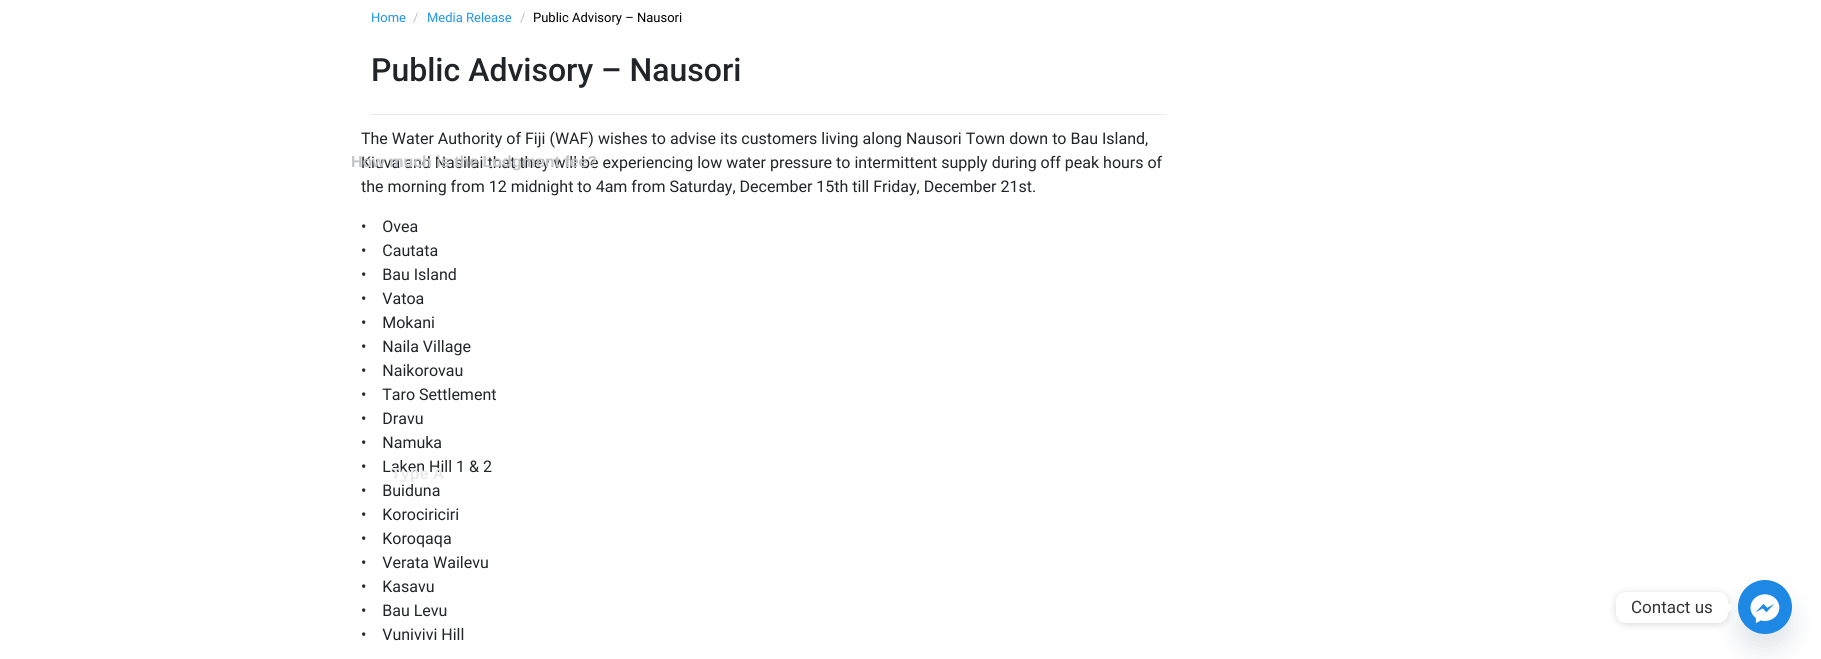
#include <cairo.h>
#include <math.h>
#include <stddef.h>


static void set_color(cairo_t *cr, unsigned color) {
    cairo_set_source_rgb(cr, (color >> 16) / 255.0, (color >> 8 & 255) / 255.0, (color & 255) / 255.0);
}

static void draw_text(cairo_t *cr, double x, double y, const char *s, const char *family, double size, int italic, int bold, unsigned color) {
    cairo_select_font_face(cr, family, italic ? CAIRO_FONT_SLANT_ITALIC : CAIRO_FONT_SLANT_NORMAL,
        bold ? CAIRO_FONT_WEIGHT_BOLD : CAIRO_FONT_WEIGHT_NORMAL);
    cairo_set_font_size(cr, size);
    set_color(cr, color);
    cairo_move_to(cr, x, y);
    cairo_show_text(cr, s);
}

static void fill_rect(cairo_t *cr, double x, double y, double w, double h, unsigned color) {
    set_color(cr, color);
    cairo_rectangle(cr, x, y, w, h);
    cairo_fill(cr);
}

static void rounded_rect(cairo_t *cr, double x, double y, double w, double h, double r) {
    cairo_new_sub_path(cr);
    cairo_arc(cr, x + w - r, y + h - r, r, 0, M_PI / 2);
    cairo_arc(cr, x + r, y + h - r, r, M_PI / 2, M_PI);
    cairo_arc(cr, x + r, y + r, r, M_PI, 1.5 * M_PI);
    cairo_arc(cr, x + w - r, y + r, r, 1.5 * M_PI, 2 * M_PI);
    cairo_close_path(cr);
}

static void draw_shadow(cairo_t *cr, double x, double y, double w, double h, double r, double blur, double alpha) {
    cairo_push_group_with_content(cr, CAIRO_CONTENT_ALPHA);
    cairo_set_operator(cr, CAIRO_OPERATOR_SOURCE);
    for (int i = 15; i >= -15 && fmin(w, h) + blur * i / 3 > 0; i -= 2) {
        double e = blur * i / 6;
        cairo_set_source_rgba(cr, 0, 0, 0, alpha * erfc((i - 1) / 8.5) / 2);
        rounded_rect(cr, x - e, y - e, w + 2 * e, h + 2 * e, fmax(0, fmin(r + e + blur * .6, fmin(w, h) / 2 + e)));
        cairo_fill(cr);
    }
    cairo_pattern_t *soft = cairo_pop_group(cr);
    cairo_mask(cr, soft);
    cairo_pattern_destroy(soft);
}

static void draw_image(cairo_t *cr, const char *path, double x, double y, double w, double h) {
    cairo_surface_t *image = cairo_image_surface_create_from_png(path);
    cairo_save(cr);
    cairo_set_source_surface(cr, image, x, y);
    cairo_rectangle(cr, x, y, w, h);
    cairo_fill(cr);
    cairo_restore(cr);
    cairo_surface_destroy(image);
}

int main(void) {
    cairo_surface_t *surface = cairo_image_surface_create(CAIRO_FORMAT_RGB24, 1821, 659);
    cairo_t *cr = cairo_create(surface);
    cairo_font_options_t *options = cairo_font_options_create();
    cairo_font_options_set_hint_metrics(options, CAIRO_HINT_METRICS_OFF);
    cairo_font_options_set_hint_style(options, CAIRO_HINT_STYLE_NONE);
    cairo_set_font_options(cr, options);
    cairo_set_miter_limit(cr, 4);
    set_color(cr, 0xFFFFFF);
    cairo_paint(cr);
    draw_text(cr, 371, 22, "Home", "Roboto", 13, 0, 0, 0x2196F3);
    draw_text(cr, 413, 22, "/", "Roboto", 13, 0, 0, 0xBFBFBF);
    draw_text(cr, 427, 22, "Media Release", "Roboto", 13, 0, 0, 0x2196F3);
    draw_text(cr, 520, 22, "/", "Roboto", 13, 0, 0, 0xBFBFBF);
    draw_text(cr, 533, 22, "Public Advisory – Nausori", "Roboto", 13, 0, 0, 0x000000);
    draw_text(cr, 371, 81, "Public Advisory – Nausori", "Roboto Medium", 32, 0, 0, 0x212529);
    fill_rect(cr, 371, 114, 795, 1, 0xEBEBEB);
    draw_text(cr, 361, 144, "The Water Authority of Fiji (WAF) wishes to advise its customers living along Nausori Town down to Bau Island,", "Roboto", 16, 0, 0, 0x212529);
    draw_text(cr, 361, 168, "Kiuva and Nasilai that they will be experiencing low water pressure to intermittent supply during off peak hours of", "Roboto", 16, 0, 0, 0x212529);
    draw_text(cr, 361, 192, "the morning from 12 midnight to 4am from Saturday, December 15th till Friday, December 21st.", "Roboto", 16, 0, 0, 0x212529);
    draw_text(cr, 361, 232, "•    Ovea", "Roboto", 16, 0, 0, 0x212529);
    draw_text(cr, 361, 256, "•    Cautata", "Roboto", 16, 0, 0, 0x212529);
    draw_text(cr, 361, 280, "•    Bau Island", "Roboto", 16, 0, 0, 0x212529);
    draw_text(cr, 361, 304, "•    Vatoa", "Roboto", 16, 0, 0, 0x212529);
    draw_text(cr, 361, 328, "•    Mokani", "Roboto", 16, 0, 0, 0x212529);
    draw_text(cr, 361, 352, "•    Naila Village", "Roboto", 16, 0, 0, 0x212529);
    draw_text(cr, 361, 376, "•    Naikorovau", "Roboto", 16, 0, 0, 0x212529);
    draw_text(cr, 361, 400, "•    Taro Settlement", "Roboto", 16, 0, 0, 0x212529);
    draw_text(cr, 361, 424, "•    Dravu", "Roboto", 16, 0, 0, 0x212529);
    draw_text(cr, 361, 448, "•    Namuka", "Roboto", 16, 0, 0, 0x212529);
    draw_text(cr, 361, 472, "•    Laken Hill 1 & 2", "Roboto", 16, 0, 0, 0x212529);
    draw_text(cr, 361, 496, "•    Buiduna", "Roboto", 16, 0, 0, 0x212529);
    draw_text(cr, 361, 520, "•    Korociriciri", "Roboto", 16, 0, 0, 0x212529);
    draw_text(cr, 361, 544, "•    Koroqaqa", "Roboto", 16, 0, 0, 0x212529);
    draw_text(cr, 361, 568, "•    Verata Wailevu", "Roboto", 16, 0, 0, 0x212529);
    draw_text(cr, 361, 592, "•    Kasavu", "Roboto", 16, 0, 0, 0x212529);
    draw_text(cr, 361, 616, "•    Bau Levu", "Roboto", 16, 0, 0, 0x212529);
    draw_text(cr, 361, 640, "•    Vunivivi Hill", "Roboto", 16, 0, 0, 0x212529);
    draw_text(cr, 351, 167, "How much is the Lodgment fee?", "Liberation Sans", 16, 0, 1, 0xC4C5C6);
    draw_text(cr, 391, 479, "Type A", "Liberation Sans", 16, 0, 1, 0xEAEAEB);
    set_color(cr, 0x49687E);
    draw_shadow(cr, 1738, 596, 54, 54, 27, 12, 0.16);
    draw_image(cr, "assets/img1.png", 1738, 580, 54, 54);
    set_color(cr, 0x000000);
    draw_shadow(cr, 1616, 593, 112, 31, 10, 4, 0.15);
    set_color(cr, 0xFFFFFF);
    rounded_rect(cr, 1616, 592, 112, 31, 10);
    cairo_fill(cr);
    draw_text(cr, 1631, 613, "Contact us", "Roboto", 17, 0, 0, 0x333333);
    set_color(cr, 0xFFFFFF);
    cairo_new_path(cr);
    cairo_move_to(cr, 1728, 612.5);
    cairo_line_to(cr, 1728, 602.5);
    cairo_line_to(cr, 1733, 607.5);
    cairo_close_path(cr);
    cairo_fill(cr);
    cairo_surface_write_to_png(surface, "output.png");
    cairo_font_options_destroy(options);
    cairo_destroy(cr);
    cairo_surface_destroy(surface);
    return 0;
}
